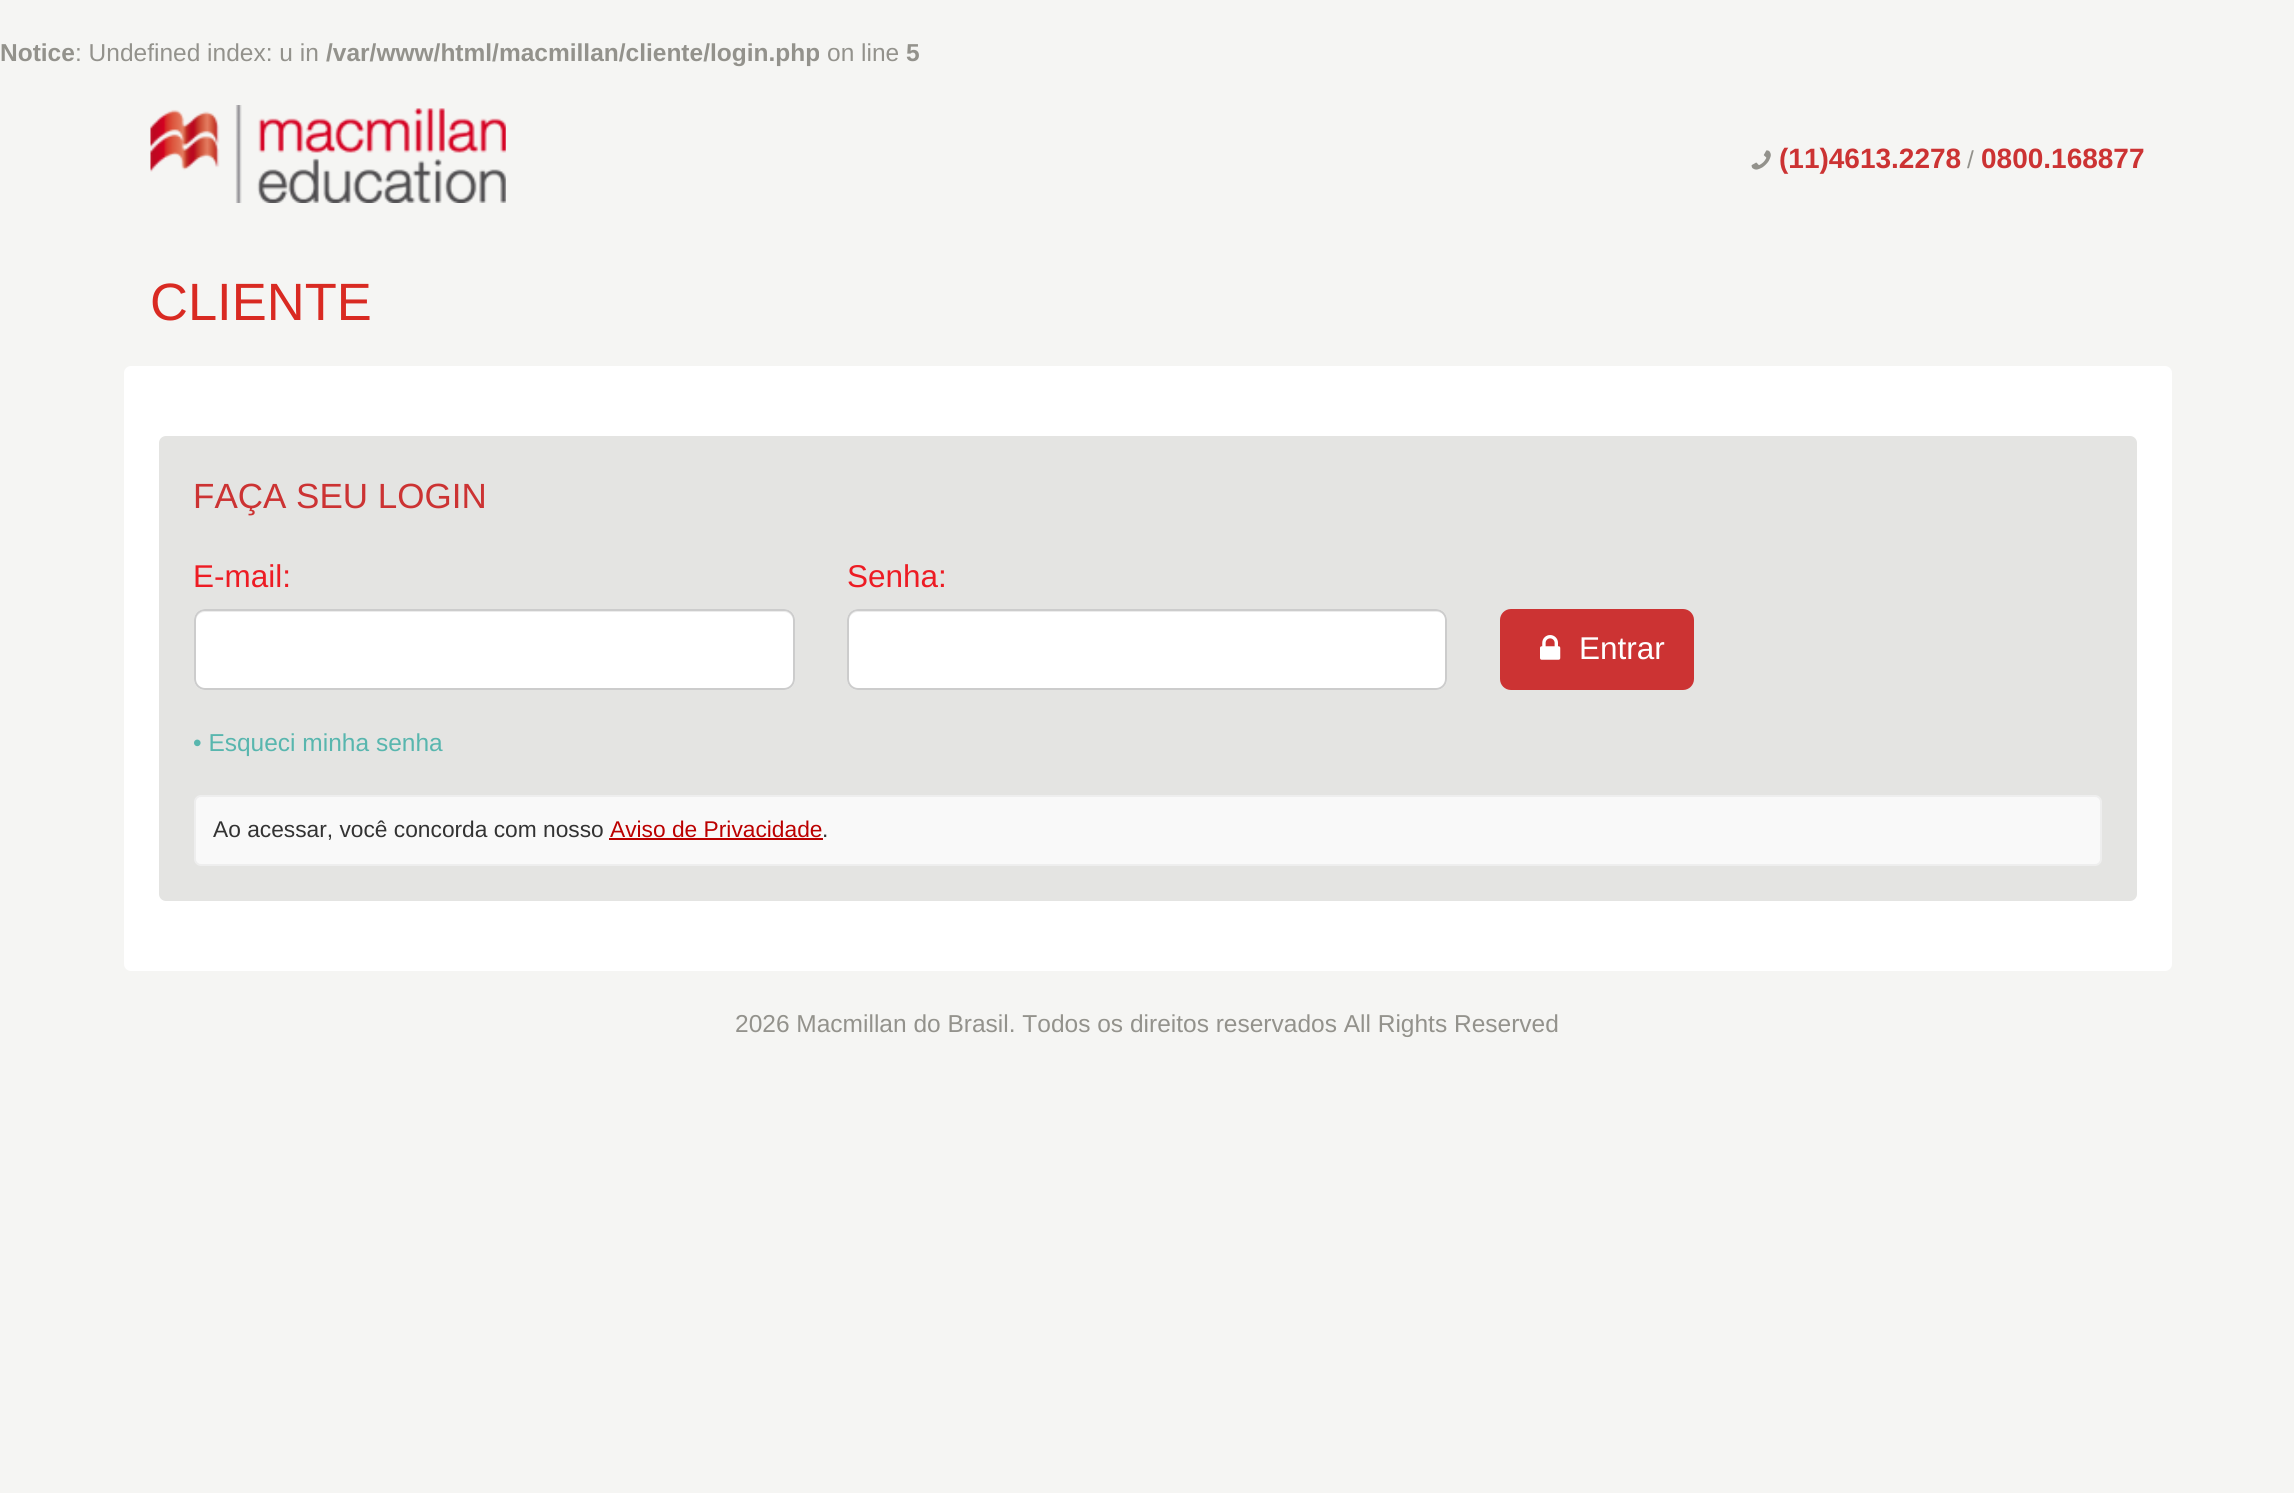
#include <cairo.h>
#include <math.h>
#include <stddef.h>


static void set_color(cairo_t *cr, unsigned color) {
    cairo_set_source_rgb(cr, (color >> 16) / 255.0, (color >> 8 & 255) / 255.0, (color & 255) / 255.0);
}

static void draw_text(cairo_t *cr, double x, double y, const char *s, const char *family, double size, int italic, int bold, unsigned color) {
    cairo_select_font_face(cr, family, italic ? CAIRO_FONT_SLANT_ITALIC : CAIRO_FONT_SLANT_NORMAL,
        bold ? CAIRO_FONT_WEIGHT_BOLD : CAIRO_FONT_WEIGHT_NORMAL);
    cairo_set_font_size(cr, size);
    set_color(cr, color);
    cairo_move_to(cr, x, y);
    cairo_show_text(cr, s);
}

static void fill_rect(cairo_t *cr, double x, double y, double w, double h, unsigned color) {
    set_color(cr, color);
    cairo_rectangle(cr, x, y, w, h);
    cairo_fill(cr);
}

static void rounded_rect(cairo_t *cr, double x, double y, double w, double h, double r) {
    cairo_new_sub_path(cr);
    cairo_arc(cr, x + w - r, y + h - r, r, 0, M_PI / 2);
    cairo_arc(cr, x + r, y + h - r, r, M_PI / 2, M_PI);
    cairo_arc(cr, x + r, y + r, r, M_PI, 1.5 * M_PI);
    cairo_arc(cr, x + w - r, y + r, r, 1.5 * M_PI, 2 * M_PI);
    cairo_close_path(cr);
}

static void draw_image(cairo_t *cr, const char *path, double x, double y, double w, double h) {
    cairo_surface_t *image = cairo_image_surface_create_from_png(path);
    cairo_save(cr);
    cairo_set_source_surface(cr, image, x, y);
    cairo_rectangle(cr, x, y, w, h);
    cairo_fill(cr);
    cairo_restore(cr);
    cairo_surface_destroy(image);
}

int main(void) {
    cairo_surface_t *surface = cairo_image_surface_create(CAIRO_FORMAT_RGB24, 2294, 1493);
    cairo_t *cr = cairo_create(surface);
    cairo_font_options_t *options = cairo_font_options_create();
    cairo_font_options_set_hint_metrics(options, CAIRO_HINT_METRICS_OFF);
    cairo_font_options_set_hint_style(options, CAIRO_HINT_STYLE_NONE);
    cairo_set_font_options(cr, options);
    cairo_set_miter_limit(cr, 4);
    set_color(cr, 0xF5F5F3);
    cairo_paint(cr);
    draw_text(cr, 0, 61, "Notice", "Liberation Sans", 24.5, 0, 1, 0x93928C);
    draw_text(cr, 75, 61, ": Undefined index: u in", "Liberation Sans", 24.5, 0, 0, 0x93928C);
    draw_text(cr, 326, 61, "/var/www/html/macmillan/cliente/login.php", "Liberation Sans", 24.5, 0, 1, 0x93928C);
    draw_text(cr, 827, 61, "on line", "Liberation Sans", 24.5, 0, 0, 0x93928C);
    draw_text(cr, 906, 61, "5", "Liberation Sans", 24.5, 0, 1, 0x93928C);
    draw_image(cr, "assets/img1.png", 150, 105, 356, 98);
    draw_image(cr, "assets/img2.png", 1751, 150, 20, 20);
    draw_text(cr, 1779, 168, "(11)4613.2278", "Liberation Sans", 28, 0, 1, 0xCC3333);
    draw_text(cr, 1967, 168, "/", "Liberation Sans", 24.5, 0, 0, 0x93928C);
    draw_text(cr, 1981, 168, "0800.168877", "Liberation Sans", 28, 0, 1, 0xCC3333);
    draw_text(cr, 150, 320, "CLIENTE", "Liberation Sans", 52.5, 0, 0, 0xD92A22);
    set_color(cr, 0xFFFFFF);
    rounded_rect(cr, 124, 366, 2048, 605, 7);
    cairo_fill(cr);
    set_color(cr, 0xE4E4E2);
    rounded_rect(cr, 159, 436, 1978, 465, 7);
    cairo_fill(cr);
    draw_text(cr, 193, 508, "FAÇA SEU LOGIN", "Liberation Sans", 35, 0, 0, 0xCC3333);
    draw_text(cr, 193, 587, "E-mail:", "Liberation Sans", 31.5, 0, 0, 0xED1C24);
    set_color(cr, 0xFFFFFF);
    rounded_rect(cr, 194, 609, 601, 81, 11);
    cairo_fill(cr);
    set_color(cr, 0xECECEC);
    cairo_new_path(cr);
    cairo_move_to(cr, 205, 612);
    cairo_line_to(cr, 784, 612);
    cairo_curve_to(cr, 789, 612, 793, 616, 793, 621);
    cairo_line_to(cr, 793, 620);
    cairo_curve_to(cr, 793, 615, 789, 611, 784, 611);
    cairo_line_to(cr, 205, 611);
    cairo_curve_to(cr, 200, 611, 196, 615, 196, 620);
    cairo_line_to(cr, 196, 621);
    cairo_curve_to(cr, 196, 616, 200, 612, 205, 612);
    cairo_close_path(cr);
    cairo_fill(cr);
    rounded_rect(cr, 195, 610, 599, 79, 10);
    set_color(cr, 0xCCCCCC);
    cairo_stroke(cr);
    draw_text(cr, 847, 587, "Senha:", "Liberation Sans", 31.5, 0, 0, 0xED1C24);
    set_color(cr, 0xFFFFFF);
    rounded_rect(cr, 847, 609, 600, 81, 11);
    cairo_fill(cr);
    set_color(cr, 0xECECEC);
    cairo_new_path(cr);
    cairo_move_to(cr, 858, 612);
    cairo_line_to(cr, 1437, 612);
    cairo_curve_to(cr, 1442, 612, 1446, 616, 1446, 621);
    cairo_line_to(cr, 1446, 620);
    cairo_curve_to(cr, 1446, 615, 1442, 611, 1437, 611);
    cairo_line_to(cr, 858, 611);
    cairo_curve_to(cr, 853, 611, 849, 615, 849, 620);
    cairo_line_to(cr, 849, 621);
    cairo_curve_to(cr, 849, 616, 853, 612, 858, 612);
    cairo_close_path(cr);
    cairo_fill(cr);
    rounded_rect(cr, 848, 610, 598, 79, 10);
    set_color(cr, 0xCCCCCC);
    cairo_stroke(cr);
    set_color(cr, 0xCC3333);
    rounded_rect(cr, 1500, 609, 194, 81, 11);
    cairo_fill(cr);
    draw_image(cr, "assets/img3.png", 1540, 635, 21, 25);
    draw_text(cr, 1579, 659, "Entrar", "Liberation Sans", 31.5, 0, 0, 0xFFFFFF);
    draw_text(cr, 193, 751, "• Esqueci minha senha", "Liberation Sans", 24.5, 0, 0, 0x58B6AE);
    set_color(cr, 0xF9F9F9);
    rounded_rect(cr, 195, 796, 1906, 69, 6);
    cairo_fill_preserve(cr);
    set_color(cr, 0xEEEEEE);
    cairo_stroke(cr);
    draw_text(cr, 213, 837, "Ao acessar, você concorda com nosso", "Liberation Sans", 22.75, 0, 0, 0x333333);
    draw_text(cr, 610, 837, "Aviso de Privacidade", "Liberation Sans", 22.75, 0, 0, 0xBB0000);
    fill_rect(cr, 609, 838, 214, 2, 0xBB0000);
    draw_text(cr, 822, 837, ".", "Liberation Sans", 22.75, 0, 0, 0x333333);
    draw_text(cr, 735, 1032, "2026 Macmillan do Brasil. Todos os direitos reservados All Rights Reserved", "Liberation Sans", 24.5, 0, 0, 0x93928C);
    cairo_surface_write_to_png(surface, "output.png");
    cairo_font_options_destroy(options);
    cairo_destroy(cr);
    cairo_surface_destroy(surface);
    return 0;
}
